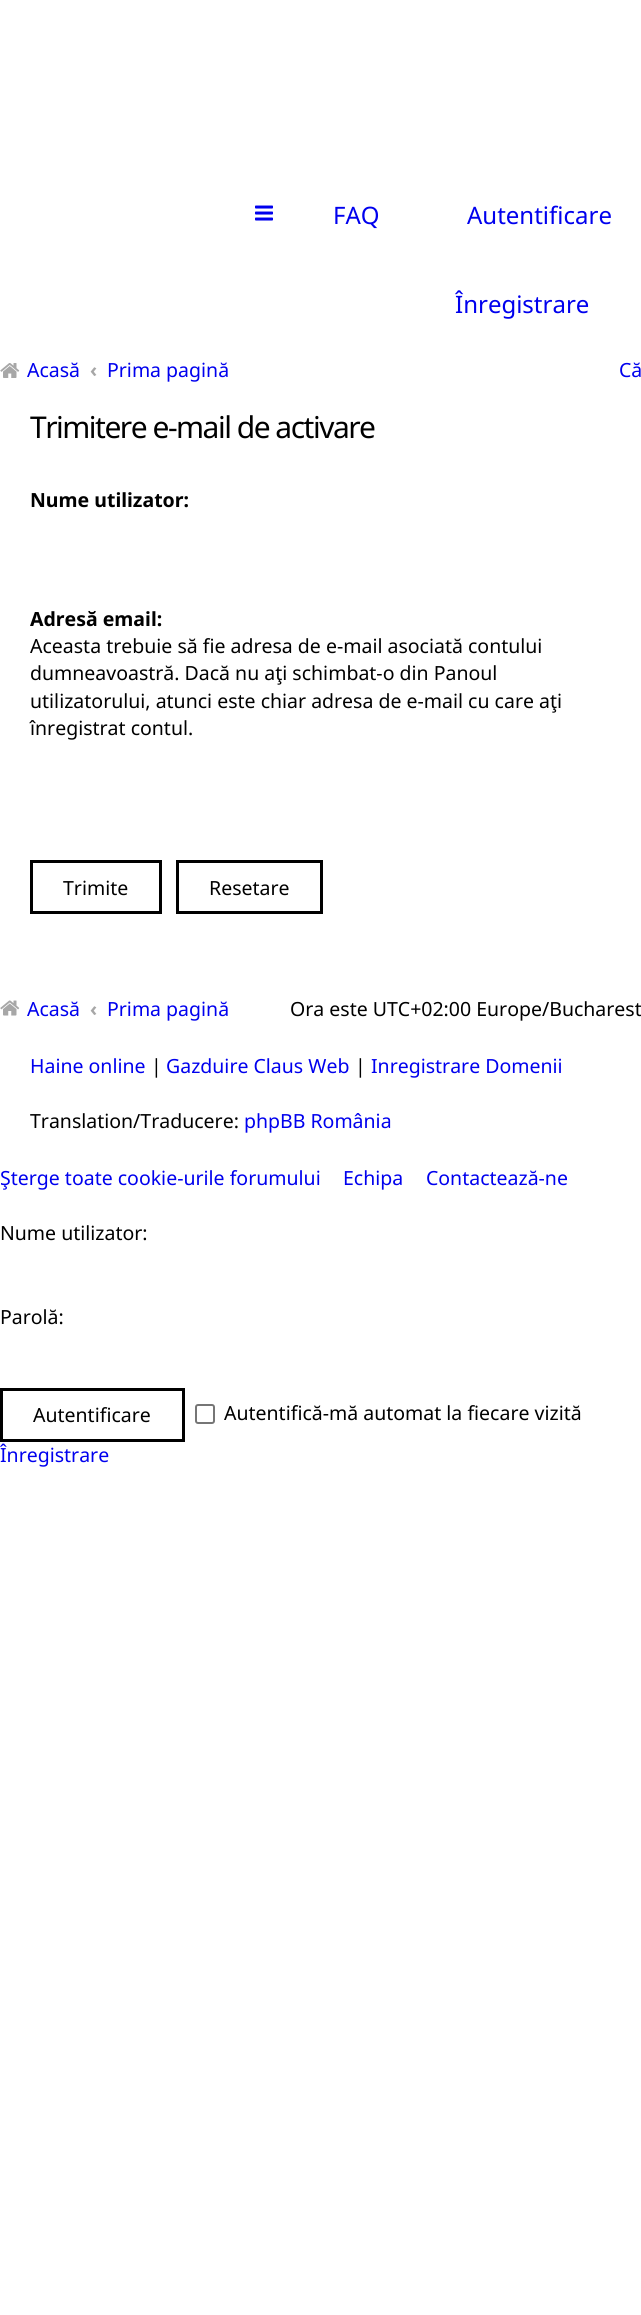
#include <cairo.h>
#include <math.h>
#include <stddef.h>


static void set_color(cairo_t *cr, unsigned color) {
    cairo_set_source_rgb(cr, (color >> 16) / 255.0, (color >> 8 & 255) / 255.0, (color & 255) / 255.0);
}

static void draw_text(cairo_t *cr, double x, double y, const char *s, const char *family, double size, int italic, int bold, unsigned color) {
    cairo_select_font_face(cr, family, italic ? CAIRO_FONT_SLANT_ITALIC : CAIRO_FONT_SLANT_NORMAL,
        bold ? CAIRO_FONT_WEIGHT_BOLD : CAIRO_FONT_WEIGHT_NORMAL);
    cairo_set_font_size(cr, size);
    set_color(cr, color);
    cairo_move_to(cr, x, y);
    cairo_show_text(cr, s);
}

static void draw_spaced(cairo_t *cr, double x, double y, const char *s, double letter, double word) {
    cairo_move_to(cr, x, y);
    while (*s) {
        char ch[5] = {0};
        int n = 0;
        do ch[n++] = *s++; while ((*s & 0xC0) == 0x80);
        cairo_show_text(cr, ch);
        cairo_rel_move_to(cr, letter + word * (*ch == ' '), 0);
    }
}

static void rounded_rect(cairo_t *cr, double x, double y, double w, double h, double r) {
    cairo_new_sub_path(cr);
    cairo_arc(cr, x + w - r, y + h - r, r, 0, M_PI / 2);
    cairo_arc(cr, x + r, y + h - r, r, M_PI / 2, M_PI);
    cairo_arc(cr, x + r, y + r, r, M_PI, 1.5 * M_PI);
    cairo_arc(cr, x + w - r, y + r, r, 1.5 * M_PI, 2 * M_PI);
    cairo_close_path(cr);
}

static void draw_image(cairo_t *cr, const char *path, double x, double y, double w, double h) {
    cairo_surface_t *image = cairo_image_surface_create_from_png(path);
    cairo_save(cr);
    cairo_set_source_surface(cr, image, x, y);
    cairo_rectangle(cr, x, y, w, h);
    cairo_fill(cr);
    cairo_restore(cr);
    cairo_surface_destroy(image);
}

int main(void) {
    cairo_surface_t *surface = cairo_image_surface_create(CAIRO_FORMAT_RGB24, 641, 2315);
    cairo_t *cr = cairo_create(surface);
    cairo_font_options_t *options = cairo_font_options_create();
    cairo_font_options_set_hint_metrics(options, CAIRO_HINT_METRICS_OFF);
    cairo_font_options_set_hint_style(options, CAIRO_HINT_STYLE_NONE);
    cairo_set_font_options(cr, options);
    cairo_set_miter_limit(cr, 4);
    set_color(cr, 0xFFFFFF);
    cairo_paint(cr);
    draw_image(cr, "assets/img1.png", 255, 205, 18, 16);
    draw_text(cr, 333, 224, "FAQ", "Noto Sans", 24, 0, 0, 0x0000EE);
    draw_text(cr, 467, 224, "Autentificare", "Noto Sans", 24, 0, 0, 0x0000EE);
    draw_text(cr, 455, 313, "Înregistrare", "Noto Sans", 24, 0, 0, 0x0000EE);
    draw_image(cr, "assets/img2.png", 0, 363, 20, 15);
    draw_text(cr, 27, 377, "Acasă", "Noto Sans", 19.5, 0, 0, 0x0000EE);
    draw_text(cr, 90, 377, "‹", "Noto Sans", 19.5, 0, 1, 0xA7A7A7);
    draw_text(cr, 107, 377, "Prima pagină", "Noto Sans", 19.5, 0, 0, 0x0000EE);
    draw_text(cr, 619, 377, "Că", "Noto Sans", 19.5, 0, 0, 0x0000EE);
    cairo_set_font_size(cr, 30);
    set_color(cr, 0x000000);
    draw_spaced(cr, 30, 438, "Trimitere e-mail de activare", -1.5, 0);
    draw_text(cr, 30, 507, "Nume utilizator:", "Noto Sans", 19.5, 0, 1, 0x000000);
    draw_text(cr, 30, 626, "Adresă email:", "Noto Sans", 19.5, 0, 1, 0x000000);
    draw_text(cr, 30, 653, "Aceasta trebuie să fie adresa de e-mail asociată contului", "Noto Sans", 19.5, 0, 0, 0x000000);
    draw_text(cr, 30, 680, "dumneavoastră. Dacă nu aţi schimbat-o din Panoul", "Noto Sans", 19.5, 0, 0, 0x000000);
    draw_text(cr, 30, 708, "utilizatorului, atunci este chiar adresa de e-mail cu care aţi", "Noto Sans", 19.5, 0, 0, 0x000000);
    draw_text(cr, 30, 735, "înregistrat contul.", "Noto Sans", 19.5, 0, 0, 0x000000);
    cairo_rectangle(cr, 31.5, 861.5, 129, 51);
    cairo_set_line_width(cr, 3);
    cairo_stroke(cr);
    draw_text(cr, 63, 895, "Trimite", "Noto Sans", 19.5, 0, 0, 0x000000);
    cairo_rectangle(cr, 177.5, 861.5, 144, 51);
    cairo_stroke(cr);
    draw_text(cr, 209, 895, "Resetare", "Noto Sans", 19.5, 0, 0, 0x000000);
    draw_image(cr, "assets/img3.png", 0, 1000, 20, 16);
    draw_text(cr, 27, 1016, "Acasă", "Noto Sans", 19.5, 0, 0, 0x0000EE);
    draw_text(cr, 90, 1016, "‹", "Noto Sans", 19.5, 0, 1, 0xA7A7A7);
    draw_text(cr, 107, 1016, "Prima pagină", "Noto Sans", 19.5, 0, 0, 0x0000EE);
    draw_text(cr, 290, 1016, "Ora este UTC+02:00 Europe/Bucharest", "Noto Sans", 19.5, 0, 0, 0x000000);
    draw_text(cr, 30, 1073, "Haine online", "Noto Sans", 19.5, 0, 0, 0x0000EE);
    draw_text(cr, 151, 1073, "|", "Noto Sans", 19.5, 0, 0, 0x000000);
    draw_text(cr, 166, 1073, "Gazduire Claus Web", "Noto Sans", 19.5, 0, 0, 0x0000EE);
    draw_text(cr, 355, 1073, "|", "Noto Sans", 19.5, 0, 0, 0x000000);
    draw_text(cr, 371, 1073, "Inregistrare Domenii", "Noto Sans", 19.5, 0, 0, 0x0000EE);
    draw_text(cr, 30, 1128, "Translation/Traducere:", "Noto Sans", 19.5, 0, 0, 0x000000);
    draw_text(cr, 244, 1128, "phpBB România", "Noto Sans", 19.5, 0, 0, 0x0000EE);
    draw_text(cr, 0, 1185, "Şterge toate cookie-urile forumului", "Noto Sans", 19.5, 0, 0, 0x0000EE);
    draw_text(cr, 343, 1185, "Echipa", "Noto Sans", 19.5, 0, 0, 0x0000EE);
    draw_text(cr, 426, 1185, "Contactează-ne", "Noto Sans", 19.5, 0, 0, 0x0000EE);
    draw_text(cr, 0, 1240, "Nume utilizator:", "Noto Sans", 19.5, 0, 0, 0x000000);
    draw_text(cr, 0, 1324, "Parolă:", "Noto Sans", 19.5, 0, 0, 0x000000);
    cairo_rectangle(cr, 1.5, 1389.5, 182, 51);
    cairo_stroke(cr);
    draw_text(cr, 33, 1422, "Autentificare", "Noto Sans", 19.5, 0, 0, 0x000000);
    rounded_rect(cr, 196, 1405, 18, 18, 2);
    set_color(cr, 0x767676);
    cairo_set_line_width(cr, 2);
    cairo_stroke(cr);
    draw_text(cr, 224, 1420, "Autentifică-mă automat la fiecare vizită", "Noto Sans", 19.5, 0, 0, 0x000000);
    draw_text(cr, 0, 1462, "Înregistrare", "Noto Sans", 19.5, 0, 0, 0x0000EE);
    cairo_surface_write_to_png(surface, "output.png");
    cairo_font_options_destroy(options);
    cairo_destroy(cr);
    cairo_surface_destroy(surface);
    return 0;
}
